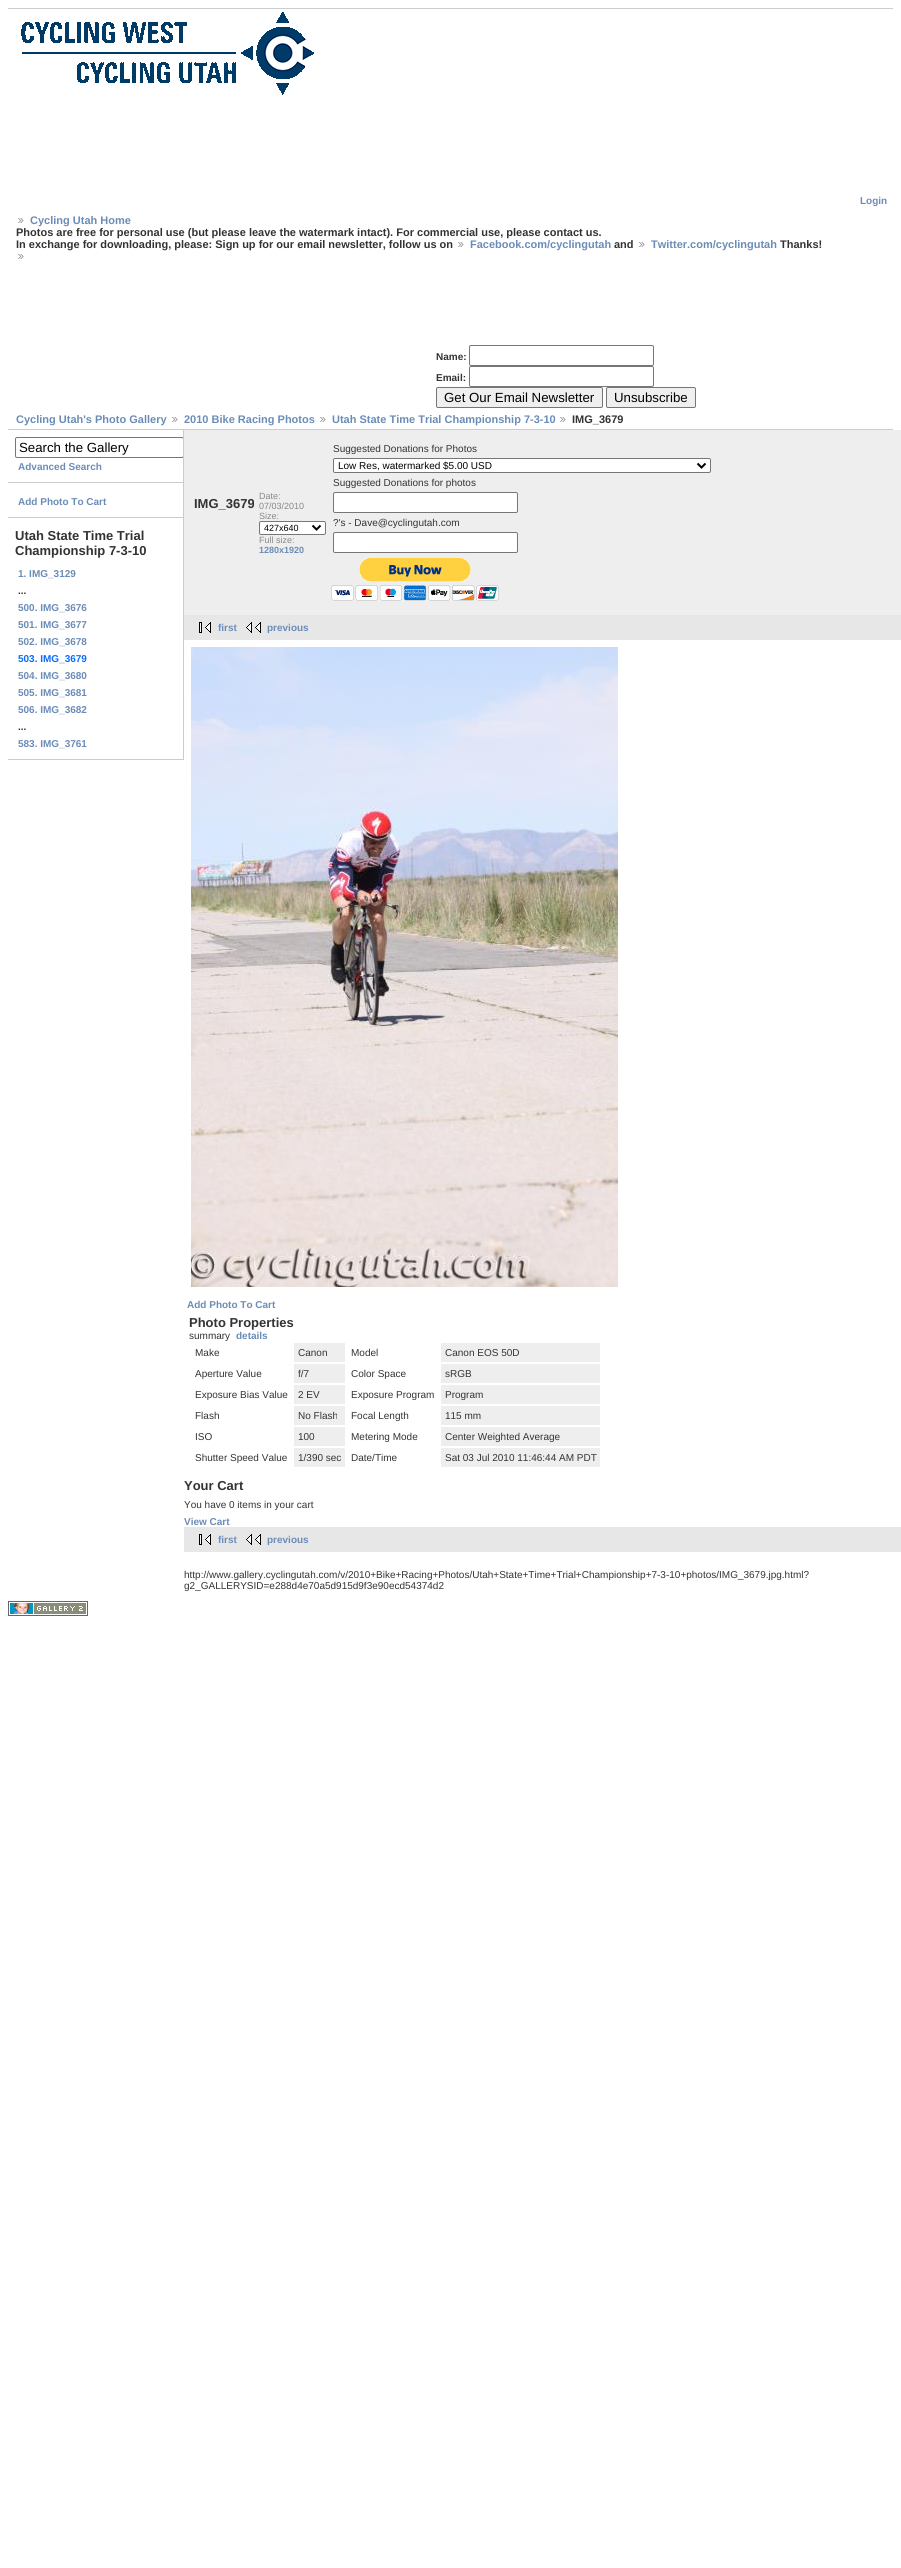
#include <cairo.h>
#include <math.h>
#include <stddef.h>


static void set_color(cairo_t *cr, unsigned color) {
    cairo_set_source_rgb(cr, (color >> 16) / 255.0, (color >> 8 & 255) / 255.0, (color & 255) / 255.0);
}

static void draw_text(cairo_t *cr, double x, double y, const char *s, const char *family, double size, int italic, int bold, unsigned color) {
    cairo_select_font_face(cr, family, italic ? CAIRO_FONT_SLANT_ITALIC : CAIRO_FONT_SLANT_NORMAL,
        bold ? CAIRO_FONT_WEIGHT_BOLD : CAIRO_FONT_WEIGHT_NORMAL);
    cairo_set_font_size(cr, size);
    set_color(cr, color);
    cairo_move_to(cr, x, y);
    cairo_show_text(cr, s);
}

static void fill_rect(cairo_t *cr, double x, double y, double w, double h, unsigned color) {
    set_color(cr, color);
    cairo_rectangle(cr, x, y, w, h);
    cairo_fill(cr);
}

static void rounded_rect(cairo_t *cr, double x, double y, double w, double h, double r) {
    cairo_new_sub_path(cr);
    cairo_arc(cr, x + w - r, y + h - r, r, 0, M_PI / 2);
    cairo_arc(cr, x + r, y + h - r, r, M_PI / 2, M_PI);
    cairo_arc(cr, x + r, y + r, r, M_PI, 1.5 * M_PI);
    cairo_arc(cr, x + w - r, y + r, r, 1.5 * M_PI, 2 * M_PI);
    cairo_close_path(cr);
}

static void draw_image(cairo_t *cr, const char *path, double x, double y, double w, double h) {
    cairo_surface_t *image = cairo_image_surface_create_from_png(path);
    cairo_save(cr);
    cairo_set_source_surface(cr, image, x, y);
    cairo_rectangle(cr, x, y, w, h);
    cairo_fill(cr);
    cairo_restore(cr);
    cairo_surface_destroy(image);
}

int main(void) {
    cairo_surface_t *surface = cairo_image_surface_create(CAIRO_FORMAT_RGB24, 901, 2568);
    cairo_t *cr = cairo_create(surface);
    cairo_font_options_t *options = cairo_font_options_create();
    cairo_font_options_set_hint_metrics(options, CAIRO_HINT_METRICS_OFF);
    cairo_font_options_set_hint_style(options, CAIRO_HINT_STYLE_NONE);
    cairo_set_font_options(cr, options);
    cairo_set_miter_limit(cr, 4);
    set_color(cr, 0xFFFFFF);
    cairo_paint(cr);
    draw_image(cr, "assets/img1.png", 21, 12, 293, 83);
    fill_rect(cr, 8, 8, 885, 1, 0xCCCCCC);
    fill_rect(cr, 8, 429, 885, 1, 0xCCCCCC);
    draw_text(cr, 860, 204, "Login", "Liberation Sans", 10, 0, 1, 0x6B8CB7);
    draw_image(cr, "assets/img2.png", 18, 218, 6, 5);
    draw_text(cr, 30, 224, "Cycling Utah Home", "Liberation Sans", 11, 0, 1, 0x6B8CB7);
    draw_text(cr, 16, 236, "Photos are free for personal use (but please leave the watermark intact). For commercial use, please contact us.", "Liberation Sans", 11, 0, 1, 0x333333);
    draw_text(cr, 16, 248, "In exchange for downloading, please: Sign up for our email newsletter, follow us on", "Liberation Sans", 11, 0, 1, 0x333333);
    draw_image(cr, "assets/img2.png", 458, 242, 6, 5);
    draw_text(cr, 470, 248, "Facebook.com/cyclingutah", "Liberation Sans", 11, 0, 1, 0x6B8CB7);
    draw_text(cr, 614, 248, "and", "Liberation Sans", 11, 0, 1, 0x333333);
    draw_image(cr, "assets/img2.png", 639, 242, 6, 5);
    draw_text(cr, 651, 248, "Twitter.com/cyclingutah", "Liberation Sans", 11, 0, 1, 0x6B8CB7);
    draw_text(cr, 780, 248, "Thanks!", "Liberation Sans", 11, 0, 1, 0x333333);
    draw_image(cr, "assets/img2.png", 18, 254, 6, 5);
    draw_text(cr, 436, 360, "Name:", "Liberation Sans", 10, 0, 1, 0x333333);
    rounded_rect(cr, 469.5, 345.5, 184, 20, 1.5);
    set_color(cr, 0x767676);
    cairo_set_line_width(cr, 1);
    cairo_stroke(cr);
    draw_text(cr, 436, 381, "Email:", "Liberation Sans", 10, 0, 1, 0x333333);
    rounded_rect(cr, 469.5, 366.5, 184, 20, 1.5);
    set_color(cr, 0x767676);
    cairo_stroke(cr);
    set_color(cr, 0xEFEFEF);
    rounded_rect(cr, 436.5, 387.5, 166, 20, 1.5);
    cairo_fill_preserve(cr);
    set_color(cr, 0x767676);
    cairo_stroke(cr);
    draw_text(cr, 444, 402, "Get Our Email Newsletter", "Liberation Sans", 13.25, 0, 0, 0x000000);
    set_color(cr, 0xEFEFEF);
    rounded_rect(cr, 606.5, 387.5, 89, 20, 1.5);
    cairo_fill_preserve(cr);
    set_color(cr, 0x767676);
    cairo_stroke(cr);
    draw_text(cr, 614, 402, "Unsubscribe", "Liberation Sans", 13.25, 0, 0, 0x000000);
    draw_text(cr, 16, 423, "Cycling Utah's Photo Gallery", "Liberation Sans", 11, 0, 1, 0x6B8CB7);
    draw_image(cr, "assets/img2.png", 172, 417, 6, 5);
    draw_text(cr, 184, 423, "2010 Bike Racing Photos", "Liberation Sans", 11, 0, 1, 0x6B8CB7);
    draw_image(cr, "assets/img2.png", 320, 417, 6, 5);
    draw_text(cr, 332, 423, "Utah State Time Trial Championship 7-3-10", "Liberation Sans", 11, 0, 1, 0x6B8CB7);
    draw_image(cr, "assets/img2.png", 560, 417, 6, 5);
    draw_text(cr, 572, 423, "IMG_3679", "Liberation Sans", 11, 0, 1, 0x333333);
    fill_rect(cr, 183, 430, 1, 330, 0xCCCCCC);
    fill_rect(cr, 8, 482, 175, 1, 0xCCCCCC);
    cairo_save(cr);
    cairo_rectangle(cr, 8, 430, 175, 330);
    cairo_clip(cr);
    rounded_rect(cr, 15.5, 437.5, 168, 20, 1.5);
    set_color(cr, 0x767676);
    cairo_stroke(cr);
    cairo_restore(cr);
    draw_text(cr, 19, 452, "Search the Gallery", "Liberation Sans", 13.25, 0, 0, 0x000000);
    draw_text(cr, 18, 470, "Advanced Search", "Liberation Sans", 10, 0, 1, 0x6B8CB7);
    fill_rect(cr, 8, 517, 175, 1, 0xCCCCCC);
    draw_text(cr, 18, 505, "Add Photo To Cart", "Liberation Sans", 10, 0, 1, 0x6B8CB7);
    fill_rect(cr, 8, 759, 175, 1, 0xCCCCCC);
    draw_text(cr, 15, 540, "Utah State Time Trial", "Liberation Sans", 13, 0, 1, 0x333333);
    draw_text(cr, 15, 555, "Championship 7-3-10", "Liberation Sans", 13, 0, 1, 0x333333);
    draw_text(cr, 18, 577, "1. IMG_3129", "Liberation Sans", 10, 0, 1, 0x6B8CB7);
    draw_text(cr, 18, 594, "...", "Liberation Sans", 10, 0, 1, 0x333333);
    draw_text(cr, 18, 611, "500. IMG_3676", "Liberation Sans", 10, 0, 1, 0x6B8CB7);
    draw_text(cr, 18, 628, "501. IMG_3677", "Liberation Sans", 10, 0, 1, 0x6B8CB7);
    draw_text(cr, 18, 645, "502. IMG_3678", "Liberation Sans", 10, 0, 1, 0x6B8CB7);
    draw_text(cr, 18, 662, "503. IMG_3679", "Liberation Sans", 10, 0, 1, 0x0B6CFF);
    draw_text(cr, 18, 679, "504. IMG_3680", "Liberation Sans", 10, 0, 1, 0x6B8CB7);
    draw_text(cr, 18, 696, "505. IMG_3681", "Liberation Sans", 10, 0, 1, 0x6B8CB7);
    draw_text(cr, 18, 713, "506. IMG_3682", "Liberation Sans", 10, 0, 1, 0x6B8CB7);
    draw_text(cr, 18, 730, "...", "Liberation Sans", 10, 0, 1, 0x333333);
    draw_text(cr, 18, 747, "583. IMG_3761", "Liberation Sans", 10, 0, 1, 0x6B8CB7);
    fill_rect(cr, 184, 430, 717, 185, 0xEEEEEE);
    draw_text(cr, 194, 508, "IMG_3679", "Liberation Sans", 13, 0, 1, 0x333333);
    draw_text(cr, 259, 499, "Date:", "Liberation Sans", 9, 0, 0, 0x888888);
    draw_text(cr, 259, 509, "07/03/2010", "Liberation Sans", 9, 0, 0, 0x888888);
    draw_text(cr, 259, 519, "Size:", "Liberation Sans", 9, 0, 0, 0x888888);
    set_color(cr, 0xFFFFFF);
    rounded_rect(cr, 259.5, 521.5, 66, 13, 1.5);
    cairo_fill_preserve(cr);
    set_color(cr, 0x767676);
    cairo_stroke(cr);
    cairo_new_path(cr);
    cairo_move_to(cr, 312.5, 525.5);
    cairo_line_to(cr, 316.5, 529.5);
    cairo_line_to(cr, 320.5, 525.5);
    set_color(cr, 0x000000);
    cairo_set_line_width(cr, 2);
    cairo_stroke(cr);
    draw_text(cr, 264, 531, "427x640", "Liberation Sans", 9, 0, 0, 0x000000);
    draw_text(cr, 259, 543, "Full size:", "Liberation Sans", 9, 0, 0, 0x888888);
    draw_text(cr, 259, 553, "1280x1920", "Liberation Sans", 9, 0, 1, 0x6B8CB7);
    draw_text(cr, 333, 452, "Suggested Donations for Photos", "Liberation Sans", 10, 0, 0, 0x333333);
    set_color(cr, 0xFFFFFF);
    rounded_rect(cr, 333.5, 458.5, 377, 14, 1.5);
    cairo_fill_preserve(cr);
    set_color(cr, 0x767676);
    cairo_set_line_width(cr, 1);
    cairo_stroke(cr);
    cairo_new_path(cr);
    cairo_move_to(cr, 697.5, 463.5);
    cairo_line_to(cr, 701.5, 467.5);
    cairo_line_to(cr, 705.5, 463.5);
    set_color(cr, 0x000000);
    cairo_set_line_width(cr, 2);
    cairo_stroke(cr);
    draw_text(cr, 338, 469, "Low Res, watermarked $5.00 USD", "Liberation Sans", 10, 0, 0, 0x000000);
    draw_text(cr, 333, 486, "Suggested Donations for photos", "Liberation Sans", 10, 0, 0, 0x333333);
    set_color(cr, 0xFFFFFF);
    rounded_rect(cr, 333.5, 492.5, 184, 20, 1.5);
    cairo_fill_preserve(cr);
    set_color(cr, 0x767676);
    cairo_set_line_width(cr, 1);
    cairo_stroke(cr);
    draw_text(cr, 333, 526, "?'s - Dave@cyclingutah.com", "Liberation Sans", 10, 0, 0, 0x333333);
    set_color(cr, 0xFFFFFF);
    rounded_rect(cr, 333.5, 532.5, 184, 20, 1.5);
    cairo_fill_preserve(cr);
    set_color(cr, 0x767676);
    cairo_stroke(cr);
    draw_image(cr, "assets/img3.png", 331, 558, 168, 43);
    fill_rect(cr, 184, 615, 717, 25, 0xE7E7E7);
    draw_image(cr, "assets/img4.png", 199, 622, 12, 11);
    draw_text(cr, 218, 631, "first", "Liberation Sans", 10, 0, 1, 0x6B8CB7);
    draw_image(cr, "assets/img5.png", 246, 622, 15, 11);
    draw_text(cr, 267, 631, "previous", "Liberation Sans", 10, 0, 1, 0x6B8CB7);
    draw_image(cr, "assets/img6.png", 191, 647, 427, 640);
    draw_text(cr, 187, 1308, "Add Photo To Cart", "Liberation Sans", 10, 0, 1, 0x6B8CB7);
    draw_text(cr, 189, 1327, "Photo Properties", "Liberation Sans", 13, 0, 1, 0x333333);
    draw_text(cr, 189, 1339, "summary", "Liberation Sans", 10, 0, 0, 0x333333);
    draw_text(cr, 236, 1339, "details", "Liberation Sans", 10, 0, 1, 0x6B8CB7);
    draw_text(cr, 195, 1356, "Make", "Liberation Sans", 10, 0, 0, 0x333333);
    fill_rect(cr, 294, 1343, 51, 19, 0xEEEEEE);
    draw_text(cr, 298, 1356, "Canon", "Liberation Sans", 10, 0, 0, 0x333333);
    draw_text(cr, 351, 1356, "Model", "Liberation Sans", 10, 0, 0, 0x333333);
    fill_rect(cr, 441, 1343, 159, 19, 0xEEEEEE);
    draw_text(cr, 445, 1356, "Canon EOS 50D", "Liberation Sans", 10, 0, 0, 0x333333);
    draw_text(cr, 195, 1377, "Aperture Value", "Liberation Sans", 10, 0, 0, 0x333333);
    fill_rect(cr, 294, 1364, 51, 19, 0xEEEEEE);
    draw_text(cr, 298, 1377, "f/7", "Liberation Sans", 10, 0, 0, 0x333333);
    draw_text(cr, 351, 1377, "Color Space", "Liberation Sans", 10, 0, 0, 0x333333);
    fill_rect(cr, 441, 1364, 159, 19, 0xEEEEEE);
    draw_text(cr, 445, 1377, "sRGB", "Liberation Sans", 10, 0, 0, 0x333333);
    draw_text(cr, 195, 1398, "Exposure Bias Value", "Liberation Sans", 10, 0, 0, 0x333333);
    fill_rect(cr, 294, 1385, 51, 19, 0xEEEEEE);
    draw_text(cr, 298, 1398, "2 EV", "Liberation Sans", 10, 0, 0, 0x333333);
    draw_text(cr, 351, 1398, "Exposure Program", "Liberation Sans", 10, 0, 0, 0x333333);
    fill_rect(cr, 441, 1385, 159, 19, 0xEEEEEE);
    draw_text(cr, 445, 1398, "Program", "Liberation Sans", 10, 0, 0, 0x333333);
    draw_text(cr, 195, 1419, "Flash", "Liberation Sans", 10, 0, 0, 0x333333);
    fill_rect(cr, 294, 1406, 51, 19, 0xEEEEEE);
    draw_text(cr, 298, 1419, "No Flash", "Liberation Sans", 10, 0, 0, 0x333333);
    draw_text(cr, 351, 1419, "Focal Length", "Liberation Sans", 10, 0, 0, 0x333333);
    fill_rect(cr, 441, 1406, 159, 19, 0xEEEEEE);
    draw_text(cr, 445, 1419, "115 mm", "Liberation Sans", 10, 0, 0, 0x333333);
    draw_text(cr, 195, 1440, "ISO", "Liberation Sans", 10, 0, 0, 0x333333);
    fill_rect(cr, 294, 1427, 51, 19, 0xEEEEEE);
    draw_text(cr, 298, 1440, "100", "Liberation Sans", 10, 0, 0, 0x333333);
    draw_text(cr, 351, 1440, "Metering Mode", "Liberation Sans", 10, 0, 0, 0x333333);
    fill_rect(cr, 441, 1427, 159, 19, 0xEEEEEE);
    draw_text(cr, 445, 1440, "Center Weighted Average", "Liberation Sans", 10, 0, 0, 0x333333);
    draw_text(cr, 195, 1461, "Shutter Speed Value", "Liberation Sans", 10, 0, 0, 0x333333);
    fill_rect(cr, 294, 1448, 51, 19, 0xEEEEEE);
    draw_text(cr, 298, 1461, "1/390 sec", "Liberation Sans", 10, 0, 0, 0x333333);
    draw_text(cr, 351, 1461, "Date/Time", "Liberation Sans", 10, 0, 0, 0x333333);
    fill_rect(cr, 441, 1448, 159, 19, 0xEEEEEE);
    draw_text(cr, 445, 1461, "Sat 03 Jul 2010 11:46:44 AM PDT", "Liberation Sans", 10, 0, 0, 0x333333);
    draw_text(cr, 184, 1490, "Your Cart", "Liberation Sans", 13, 0, 1, 0x333333);
    draw_text(cr, 184, 1508, "You have 0 items in your cart", "Liberation Sans", 10, 0, 0, 0x333333);
    draw_text(cr, 184, 1525, "View Cart", "Liberation Sans", 10, 0, 1, 0x6B8CB7);
    fill_rect(cr, 184, 1527, 717, 25, 0xE7E7E7);
    draw_image(cr, "assets/img4.png", 199, 1534, 12, 11);
    draw_text(cr, 218, 1543, "first", "Liberation Sans", 10, 0, 1, 0x6B8CB7);
    draw_image(cr, "assets/img5.png", 246, 1534, 15, 11);
    draw_text(cr, 267, 1543, "previous", "Liberation Sans", 10, 0, 1, 0x6B8CB7);
    draw_text(cr, 184, 1578, "http://www.gallery.cyclingutah.com/v/2010+Bike+Racing+Photos/Utah+State+Time+Trial+Championship+7-3-10+photos/IMG_3679.jpg.html?", "Liberation Sans", 10, 0, 0, 0x333333);
    draw_text(cr, 184, 1589, "g2_GALLERYSID=e288d4e70a5d915d9f3e90ecd54374d2", "Liberation Sans", 10, 0, 0, 0x333333);
    draw_image(cr, "assets/img7.png", 8, 1601, 80, 15);
    cairo_surface_write_to_png(surface, "output.png");
    cairo_font_options_destroy(options);
    cairo_destroy(cr);
    cairo_surface_destroy(surface);
    return 0;
}
